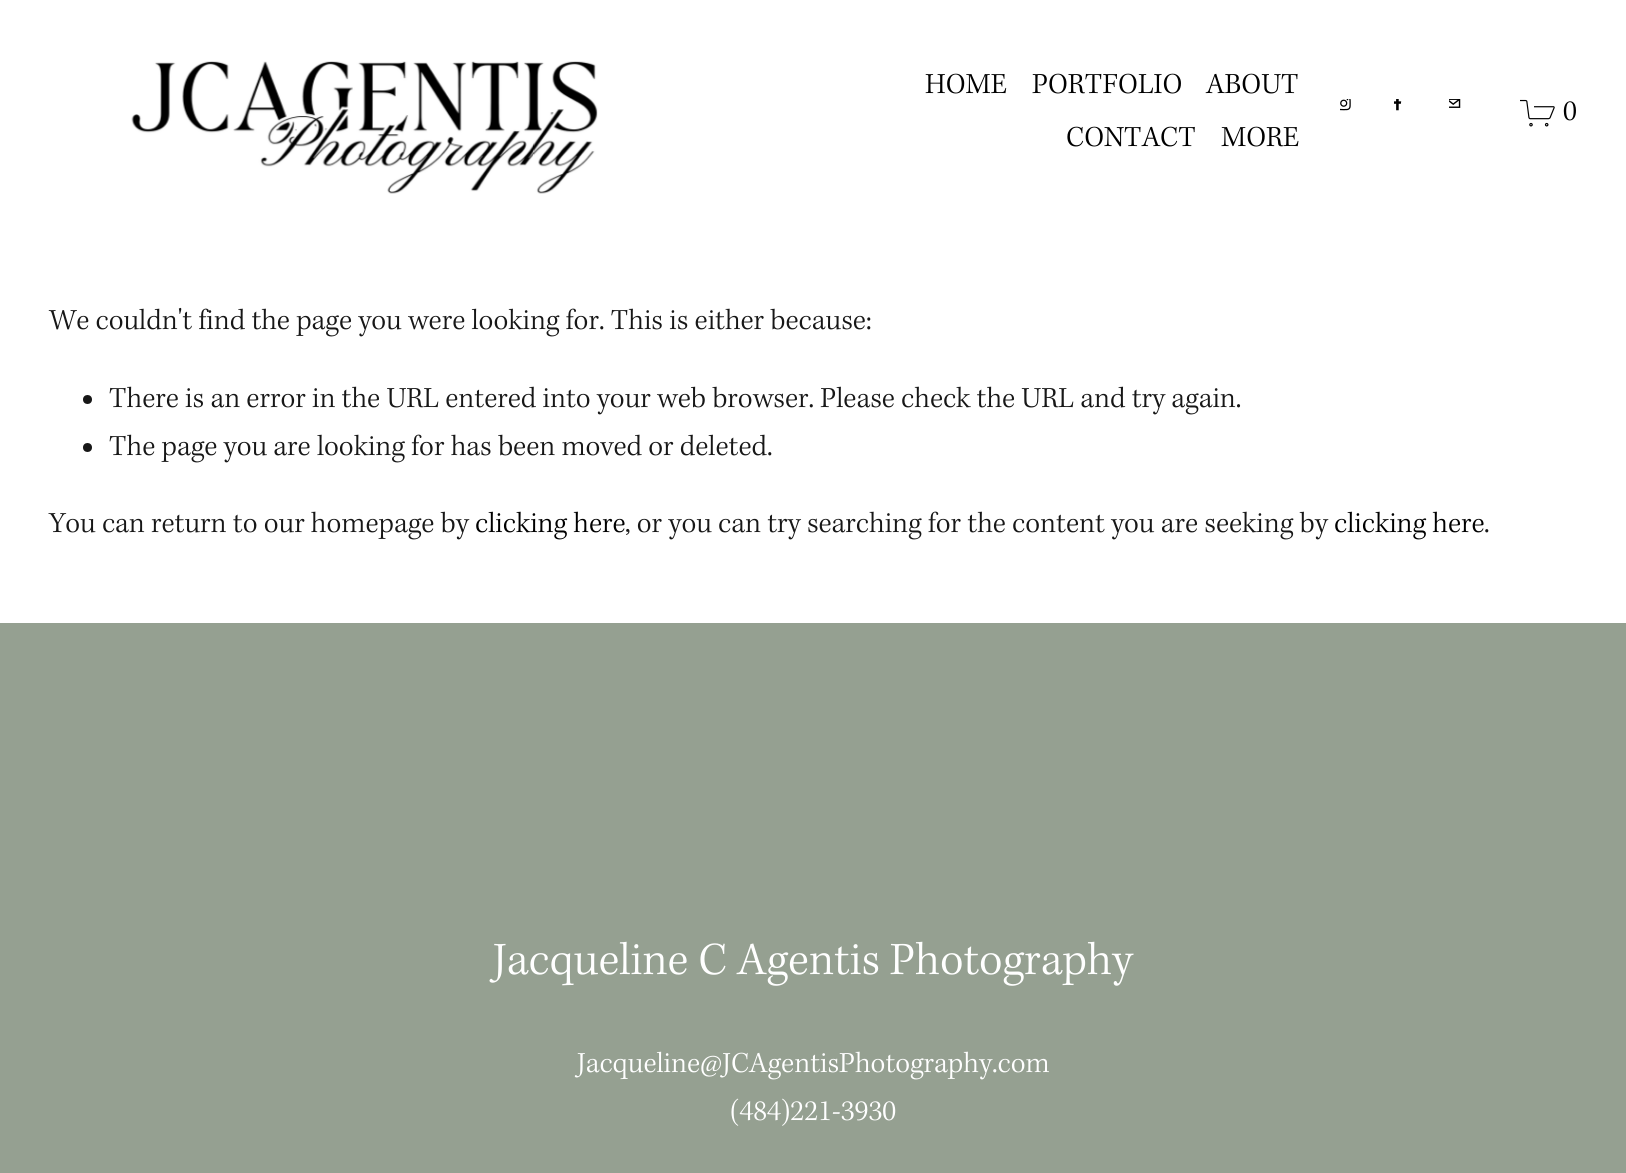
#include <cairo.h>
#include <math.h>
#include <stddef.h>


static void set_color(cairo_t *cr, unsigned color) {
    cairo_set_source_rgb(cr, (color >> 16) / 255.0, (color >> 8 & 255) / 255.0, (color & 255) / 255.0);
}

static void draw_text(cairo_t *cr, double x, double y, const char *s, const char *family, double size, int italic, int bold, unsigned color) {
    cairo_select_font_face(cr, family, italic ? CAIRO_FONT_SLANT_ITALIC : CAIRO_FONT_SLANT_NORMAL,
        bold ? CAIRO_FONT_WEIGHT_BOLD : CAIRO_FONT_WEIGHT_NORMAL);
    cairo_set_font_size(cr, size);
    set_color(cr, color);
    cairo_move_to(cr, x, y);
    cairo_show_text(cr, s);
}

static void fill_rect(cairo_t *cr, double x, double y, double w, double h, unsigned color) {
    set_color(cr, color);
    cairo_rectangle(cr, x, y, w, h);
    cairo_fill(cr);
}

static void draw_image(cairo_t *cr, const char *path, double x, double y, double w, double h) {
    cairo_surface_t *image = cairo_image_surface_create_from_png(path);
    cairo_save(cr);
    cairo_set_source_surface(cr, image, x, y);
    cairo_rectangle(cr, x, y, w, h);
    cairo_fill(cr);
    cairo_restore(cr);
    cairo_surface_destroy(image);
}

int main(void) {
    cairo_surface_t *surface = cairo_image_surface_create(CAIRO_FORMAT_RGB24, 1626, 1173);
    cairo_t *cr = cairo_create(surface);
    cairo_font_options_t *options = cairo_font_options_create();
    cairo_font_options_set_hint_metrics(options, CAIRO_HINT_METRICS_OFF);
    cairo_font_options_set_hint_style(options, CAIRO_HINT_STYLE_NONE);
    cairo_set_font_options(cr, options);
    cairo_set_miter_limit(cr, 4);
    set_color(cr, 0xFFFFFF);
    cairo_paint(cr);
    draw_image(cr, "assets/img1.png", 131, 61, 467, 133);
    draw_text(cr, 925, 93, "HOME", "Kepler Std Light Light", 29.85, 0, 0, 0x000000);
    draw_text(cr, 1032, 93, "PORTFOLIO", "Kepler Std Light Light", 29.85, 0, 0, 0x000000);
    draw_text(cr, 1206, 93, "ABOUT", "Kepler Std Light Light", 29.85, 0, 0, 0x000000);
    draw_text(cr, 1066, 146, "CONTACT", "Kepler Std Light Light", 29.85, 0, 0, 0x000000);
    draw_text(cr, 1221, 146, "MORE", "Kepler Std Light Light", 29.85, 0, 0, 0x000000);
    draw_image(cr, "assets/img2.png", 1340, 99, 11, 12);
    draw_image(cr, "assets/img3.png", 1394, 99, 8, 12);
    draw_image(cr, "assets/img4.png", 1449, 99, 12, 9);
    draw_image(cr, "assets/img5.png", 1520, 99, 35, 28);
    draw_text(cr, 1563, 120, "0", "Kepler Std Light Light", 29.85, 0, 0, 0x000000);
    draw_text(cr, 49, 329, "We couldn't find the page you were looking for. This is either because:", "Kepler Std Light Light", 29.85, 0, 0, 0x171717);
    cairo_new_path(cr);
    cairo_arc(cr, 87.5, 399.5, 4.5, 0, 2 * M_PI);
    cairo_fill(cr);
    draw_text(cr, 109, 407, "There is an error in the URL entered into your web browser. Please check the URL and try again.", "Kepler Std Light Light", 29.85, 0, 0, 0x171717);
    cairo_new_path(cr);
    cairo_arc(cr, 87.5, 447.5, 4.5, 0, 2 * M_PI);
    cairo_fill(cr);
    draw_text(cr, 109, 455, "The page you are looking for has been moved or deleted.", "Kepler Std Light Light", 29.85, 0, 0, 0x171717);
    draw_text(cr, 49, 532, "You can return to our homepage by", "Kepler Std Light Light", 29.85, 0, 0, 0x171717);
    draw_text(cr, 475, 532, "clicking here", "Kepler Std Light Light", 29.85, 0, 0, 0x000000);
    draw_text(cr, 625, 532, ", or you can try searching for the content you are seeking by", "Kepler Std Light Light", 29.85, 0, 0, 0x171717);
    draw_text(cr, 1334, 532, "clicking here", "Kepler Std Light Light", 29.85, 0, 0, 0x000000);
    draw_text(cr, 1484, 532, ".", "Kepler Std Light Light", 29.85, 0, 0, 0x171717);
    fill_rect(cr, 0, 623, 1626, 550, 0x95A091);
    draw_text(cr, 493, 974, "Jacqueline C Agentis Photography", "Kepler Std Light Light", 47.4, 0, 0, 0xFFFFFF);
    draw_text(cr, 577, 1072, "Jacqueline@JCAgentisPhotography.com", "Kepler Std Light Light", 29.85, 0, 0, 0xFFFFFF);
    draw_text(cr, 730, 1120, "(484)221-3930", "Kepler Std Light Light", 29.85, 0, 0, 0xFFFFFF);
    cairo_surface_write_to_png(surface, "output.png");
    cairo_font_options_destroy(options);
    cairo_destroy(cr);
    cairo_surface_destroy(surface);
    return 0;
}
